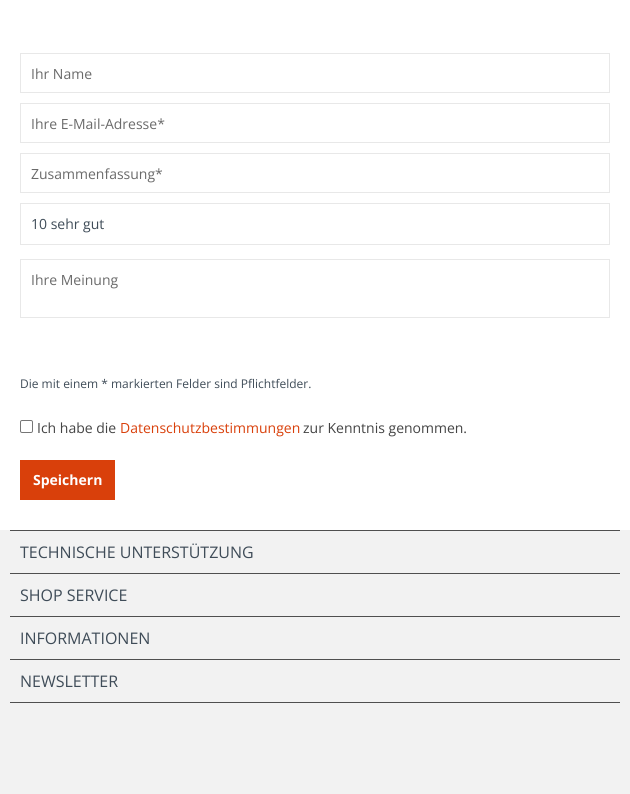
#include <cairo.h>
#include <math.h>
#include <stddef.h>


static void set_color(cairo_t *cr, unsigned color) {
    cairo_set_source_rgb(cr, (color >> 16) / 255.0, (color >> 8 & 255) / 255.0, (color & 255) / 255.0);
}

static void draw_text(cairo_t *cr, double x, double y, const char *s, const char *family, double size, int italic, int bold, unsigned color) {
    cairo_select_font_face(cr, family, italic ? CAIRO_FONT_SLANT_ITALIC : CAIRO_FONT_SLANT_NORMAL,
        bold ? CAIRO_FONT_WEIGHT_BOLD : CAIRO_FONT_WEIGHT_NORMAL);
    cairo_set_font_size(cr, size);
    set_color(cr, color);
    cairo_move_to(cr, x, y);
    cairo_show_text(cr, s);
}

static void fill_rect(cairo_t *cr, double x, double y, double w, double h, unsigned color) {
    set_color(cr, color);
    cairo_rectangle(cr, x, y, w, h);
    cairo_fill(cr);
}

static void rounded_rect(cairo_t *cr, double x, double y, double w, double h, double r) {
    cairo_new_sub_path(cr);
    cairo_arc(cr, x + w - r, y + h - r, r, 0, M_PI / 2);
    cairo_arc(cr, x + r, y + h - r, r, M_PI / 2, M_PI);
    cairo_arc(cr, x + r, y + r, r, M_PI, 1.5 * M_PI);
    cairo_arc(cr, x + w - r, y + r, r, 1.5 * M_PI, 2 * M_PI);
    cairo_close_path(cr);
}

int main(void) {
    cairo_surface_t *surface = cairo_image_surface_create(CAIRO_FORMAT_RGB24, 630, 794);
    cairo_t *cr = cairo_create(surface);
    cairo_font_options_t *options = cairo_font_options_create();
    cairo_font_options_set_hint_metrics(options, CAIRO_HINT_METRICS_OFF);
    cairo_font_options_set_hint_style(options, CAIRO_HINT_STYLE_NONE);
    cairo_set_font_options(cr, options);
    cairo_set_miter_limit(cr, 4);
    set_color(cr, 0xFFFFFF);
    cairo_paint(cr);
    cairo_rectangle(cr, 20.5, 53.5, 589, 39);
    set_color(cr, 0xE8E8E8);
    cairo_set_line_width(cr, 1);
    cairo_stroke(cr);
    draw_text(cr, 31, 79, "Ihr Name", "Open Sans", 14, 0, 0, 0x6A6A6A);
    cairo_rectangle(cr, 20.5, 103.5, 589, 39);
    set_color(cr, 0xE8E8E8);
    cairo_stroke(cr);
    draw_text(cr, 31, 129, "Ihre E-Mail-Adresse*", "Open Sans", 14, 0, 0, 0x6A6A6A);
    cairo_rectangle(cr, 20.5, 153.5, 589, 39);
    set_color(cr, 0xE8E8E8);
    cairo_stroke(cr);
    draw_text(cr, 31, 179, "Zusammenfassung*", "Open Sans", 14, 0, 0, 0x6A6A6A);
    cairo_rectangle(cr, 20.5, 203.5, 589, 41);
    set_color(cr, 0xE8E8E8);
    cairo_stroke(cr);
    draw_text(cr, 31, 229, "10 sehr gut", "Open Sans", 14, 0, 0, 0x3F4C58);
    cairo_rectangle(cr, 20.5, 259.5, 589, 58);
    set_color(cr, 0xE8E8E8);
    cairo_stroke(cr);
    draw_text(cr, 31, 285, "Ihre Meinung", "Open Sans", 14, 0, 0, 0x6A6A6A);
    draw_text(cr, 20, 388, "Die mit einem * markierten Felder sind Pflichtfelder.", "Open Sans", 12, 0, 0, 0x3F4C58);
    rounded_rect(cr, 20.5, 420.5, 12, 12, 1.5);
    set_color(cr, 0x767676);
    cairo_stroke(cr);
    draw_text(cr, 37, 433, "Ich habe die", "Open Sans", 14, 0, 0, 0x444444);
    draw_text(cr, 120, 433, "Datenschutzbestimmungen", "Open Sans", 14, 0, 0, 0xD9400B);
    draw_text(cr, 303, 433, "zur Kenntnis genommen.", "Open Sans", 14, 0, 0, 0x444444);
    fill_rect(cr, 20, 460, 95, 40, 0xD9400B);
    draw_text(cr, 33, 485, "Speichern", "Open Sans", 14, 0, 1, 0xFFFFFF);
    fill_rect(cr, 0, 530, 630, 264, 0xF2F2F2);
    fill_rect(cr, 10, 530, 610, 1, 0x4F4F4F);
    draw_text(cr, 20, 558, "TECHNISCHE UNTERSTÜTZUNG", "Open Sans", 16, 0, 0, 0x3F4C58);
    fill_rect(cr, 10, 573, 610, 1, 0x4F4F4F);
    draw_text(cr, 20, 601, "SHOP SERVICE", "Open Sans", 16, 0, 0, 0x3F4C58);
    fill_rect(cr, 10, 616, 610, 1, 0x4F4F4F);
    draw_text(cr, 20, 644, "INFORMATIONEN", "Open Sans", 16, 0, 0, 0x3F4C58);
    fill_rect(cr, 10, 659, 610, 1, 0x4F4F4F);
    fill_rect(cr, 10, 702, 610, 1, 0x4F4F4F);
    draw_text(cr, 20, 687, "NEWSLETTER", "Open Sans", 16, 0, 0, 0x3F4C58);
    cairo_surface_write_to_png(surface, "output.png");
    cairo_font_options_destroy(options);
    cairo_destroy(cr);
    cairo_surface_destroy(surface);
    return 0;
}
